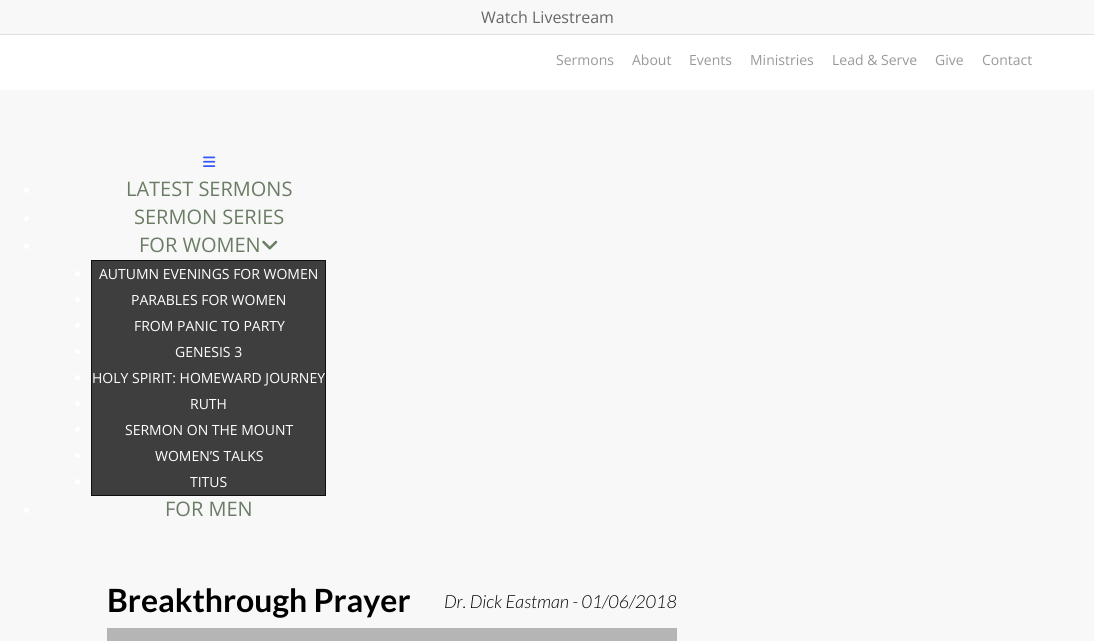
#include <cairo.h>
#include <math.h>
#include <stddef.h>


static void set_color(cairo_t *cr, unsigned color) {
    cairo_set_source_rgb(cr, (color >> 16) / 255.0, (color >> 8 & 255) / 255.0, (color & 255) / 255.0);
}

static void draw_text(cairo_t *cr, double x, double y, const char *s, const char *family, double size, int italic, int bold, unsigned color) {
    cairo_select_font_face(cr, family, italic ? CAIRO_FONT_SLANT_ITALIC : CAIRO_FONT_SLANT_NORMAL,
        bold ? CAIRO_FONT_WEIGHT_BOLD : CAIRO_FONT_WEIGHT_NORMAL);
    cairo_set_font_size(cr, size);
    set_color(cr, color);
    cairo_move_to(cr, x, y);
    cairo_show_text(cr, s);
}

static void fill_rect(cairo_t *cr, double x, double y, double w, double h, unsigned color) {
    set_color(cr, color);
    cairo_rectangle(cr, x, y, w, h);
    cairo_fill(cr);
}

static void draw_image(cairo_t *cr, const char *path, double x, double y, double w, double h) {
    cairo_surface_t *image = cairo_image_surface_create_from_png(path);
    cairo_save(cr);
    cairo_set_source_surface(cr, image, x, y);
    cairo_rectangle(cr, x, y, w, h);
    cairo_fill(cr);
    cairo_restore(cr);
    cairo_surface_destroy(image);
}

int main(void) {
    cairo_surface_t *surface = cairo_image_surface_create(CAIRO_FORMAT_RGB24, 1094, 641);
    cairo_t *cr = cairo_create(surface);
    cairo_font_options_t *options = cairo_font_options_create();
    cairo_font_options_set_hint_metrics(options, CAIRO_HINT_METRICS_OFF);
    cairo_font_options_set_hint_style(options, CAIRO_HINT_STYLE_NONE);
    cairo_set_font_options(cr, options);
    cairo_set_miter_limit(cr, 4);
    set_color(cr, 0xFFFFFF);
    cairo_paint(cr);
    fill_rect(cr, 0, 0, 1094, 34, 0xF8F8F8);
    fill_rect(cr, 0, 34, 1094, 1, 0xDFDFDF);
    draw_text(cr, 481, 23, "Watch Livestream", "Open Sans", 16, 0, 0, 0x676767);
    draw_text(cr, 556, 65, "Sermons", "Open Sans", 14, 0, 0, 0x999999);
    draw_text(cr, 632, 65, "About", "Open Sans", 14, 0, 0, 0x999999);
    draw_text(cr, 689, 65, "Events", "Open Sans", 14, 0, 0, 0x999999);
    draw_text(cr, 750, 65, "Ministries", "Open Sans", 14, 0, 0, 0x999999);
    draw_text(cr, 832, 65, "Lead & Serve", "Open Sans", 14, 0, 0, 0x999999);
    draw_text(cr, 935, 65, "Give", "Open Sans", 14, 0, 0, 0x999999);
    draw_text(cr, 982, 65, "Contact", "Open Sans", 14, 0, 0, 0x999999);
    fill_rect(cr, 0, 90, 1094, 551, 0xF8F8F8);
    draw_image(cr, "assets/img1.png", 203, 156, 13, 11);
    set_color(cr, 0xFFFFFF);
    cairo_arc(cr, 26.5, 190.5, 2.5, 0, 2 * M_PI);
    cairo_fill(cr);
    draw_text(cr, 126, 196, "LATEST SERMONS", "Open Sans", 20, 0, 0, 0x6A7D64);
    set_color(cr, 0xFFFFFF);
    cairo_new_path(cr);
    cairo_arc(cr, 26.5, 218.5, 2.5, 0, 2 * M_PI);
    cairo_fill(cr);
    draw_text(cr, 134, 224, "SERMON SERIES", "Open Sans", 20, 0, 0, 0x6A7D64);
    set_color(cr, 0xFFFFFF);
    cairo_new_path(cr);
    cairo_arc(cr, 26.5, 246.5, 2.5, 0, 2 * M_PI);
    cairo_fill(cr);
    draw_text(cr, 139, 252, "FOR WOMEN", "Open Sans", 20, 0, 0, 0x6A7D64);
    draw_image(cr, "assets/img2.png", 262, 240, 16, 10);
    set_color(cr, 0x3E3E3E);
    cairo_rectangle(cr, 91.5, 260.5, 234, 235);
    cairo_fill_preserve(cr);
    set_color(cr, 0x101010);
    cairo_set_line_width(cr, 1);
    cairo_stroke(cr);
    set_color(cr, 0xFFFFFF);
    cairo_arc(cr, 77.5, 273.5, 2.5, 0, 2 * M_PI);
    cairo_fill(cr);
    draw_text(cr, 99, 279, "AUTUMN EVENINGS FOR WOMEN", "Open Sans", 14, 0, 0, 0xFFFFFF);
    cairo_new_path(cr);
    cairo_arc(cr, 77.5, 299.5, 2.5, 0, 2 * M_PI);
    cairo_fill(cr);
    draw_text(cr, 131, 305, "PARABLES FOR WOMEN", "Open Sans", 14, 0, 0, 0xFFFFFF);
    cairo_new_path(cr);
    cairo_arc(cr, 77.5, 325.5, 2.5, 0, 2 * M_PI);
    cairo_fill(cr);
    draw_text(cr, 134, 331, "FROM PANIC TO PARTY", "Open Sans", 14, 0, 0, 0xFFFFFF);
    cairo_new_path(cr);
    cairo_arc(cr, 77.5, 351.5, 2.5, 0, 2 * M_PI);
    cairo_fill(cr);
    draw_text(cr, 175, 357, "GENESIS 3", "Open Sans", 14, 0, 0, 0xFFFFFF);
    cairo_new_path(cr);
    cairo_arc(cr, 77.5, 377.5, 2.5, 0, 2 * M_PI);
    cairo_fill(cr);
    draw_text(cr, 92, 383, "HOLY SPIRIT: HOMEWARD JOURNEY", "Open Sans", 14, 0, 0, 0xFFFFFF);
    cairo_new_path(cr);
    cairo_arc(cr, 77.5, 403.5, 2.5, 0, 2 * M_PI);
    cairo_fill(cr);
    draw_text(cr, 190, 409, "RUTH", "Open Sans", 14, 0, 0, 0xFFFFFF);
    cairo_new_path(cr);
    cairo_arc(cr, 77.5, 429.5, 2.5, 0, 2 * M_PI);
    cairo_fill(cr);
    draw_text(cr, 125, 435, "SERMON ON THE MOUNT", "Open Sans", 14, 0, 0, 0xFFFFFF);
    cairo_new_path(cr);
    cairo_arc(cr, 77.5, 455.5, 2.5, 0, 2 * M_PI);
    cairo_fill(cr);
    draw_text(cr, 155, 461, "WOMEN’S TALKS", "Open Sans", 14, 0, 0, 0xFFFFFF);
    cairo_new_path(cr);
    cairo_arc(cr, 77.5, 481.5, 2.5, 0, 2 * M_PI);
    cairo_fill(cr);
    draw_text(cr, 190, 487, "TITUS", "Open Sans", 14, 0, 0, 0xFFFFFF);
    cairo_new_path(cr);
    cairo_arc(cr, 26.5, 510.5, 2.5, 0, 2 * M_PI);
    cairo_fill(cr);
    draw_text(cr, 165, 516, "FOR MEN", "Open Sans", 20, 0, 0, 0x6A7D64);
    draw_text(cr, 107, 612, "Breakthrough Prayer", "Lato", 32, 0, 1, 0x000000);
    draw_text(cr, 444, 608, "Dr. Dick Eastman - 01/06/2018", "Lato Light", 18, 1, 0, 0x000000);
    fill_rect(cr, 107, 628, 570, 13, 0xB6B5B5);
    cairo_surface_write_to_png(surface, "output.png");
    cairo_font_options_destroy(options);
    cairo_destroy(cr);
    cairo_surface_destroy(surface);
    return 0;
}
